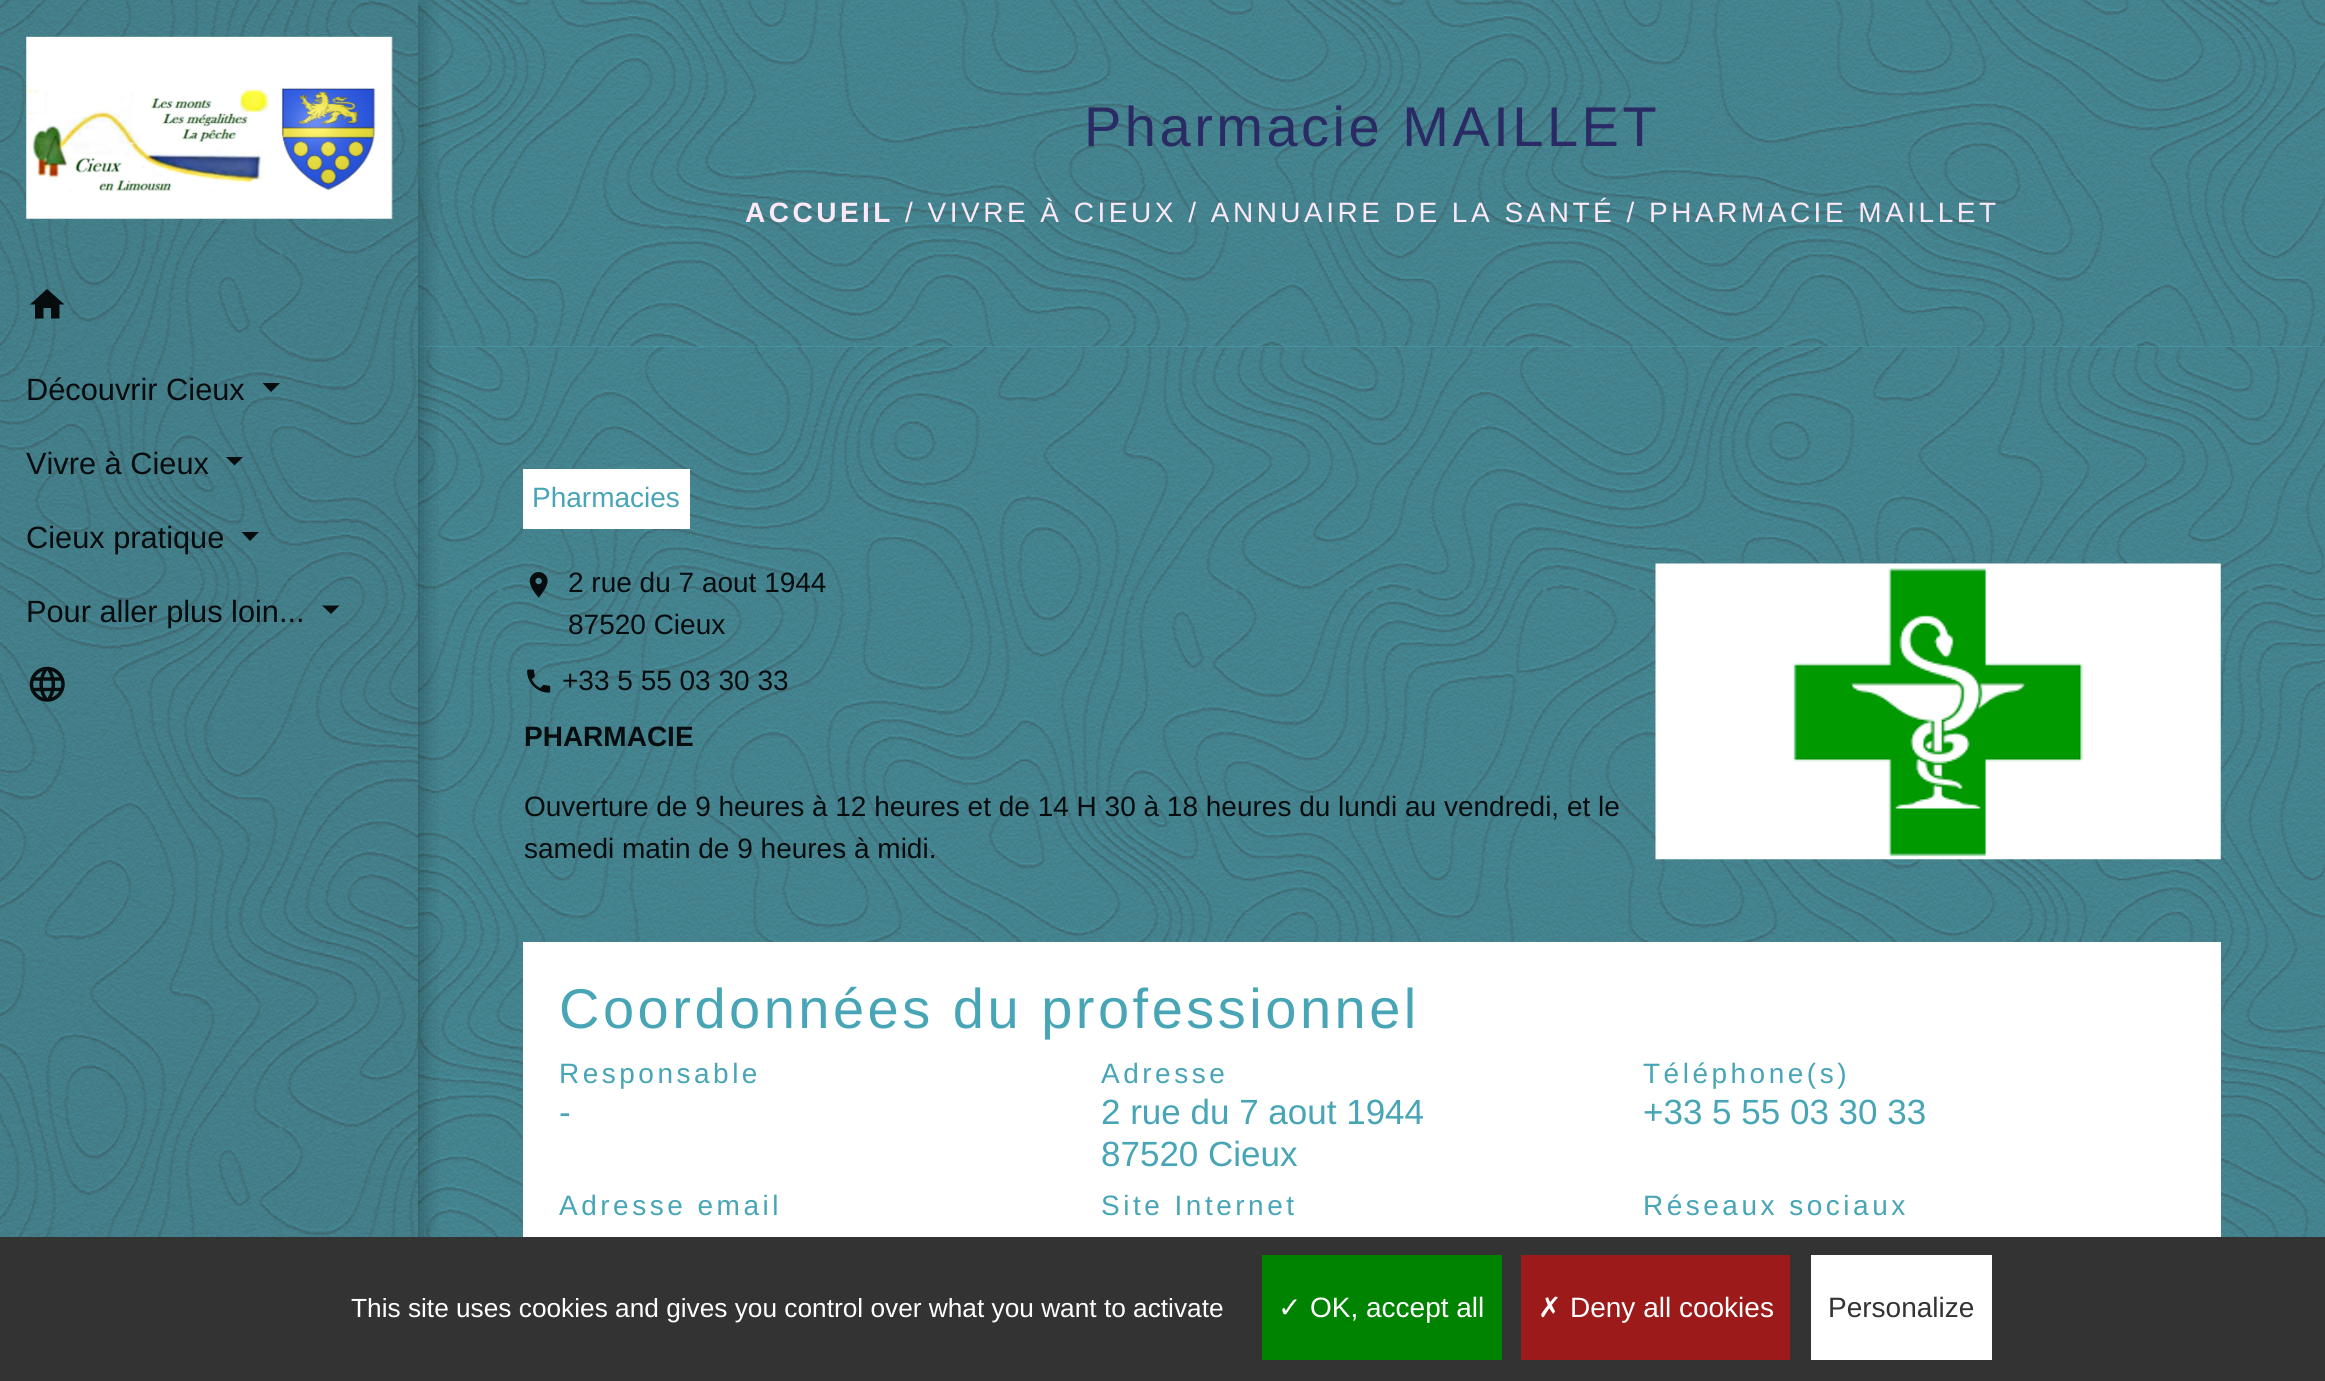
#include <cairo.h>
#include <math.h>
#include <stddef.h>


static void set_color(cairo_t *cr, unsigned color) {
    cairo_set_source_rgb(cr, (color >> 16) / 255.0, (color >> 8 & 255) / 255.0, (color & 255) / 255.0);
}

static void draw_text(cairo_t *cr, double x, double y, const char *s, const char *family, double size, int italic, int bold, unsigned color) {
    cairo_select_font_face(cr, family, italic ? CAIRO_FONT_SLANT_ITALIC : CAIRO_FONT_SLANT_NORMAL,
        bold ? CAIRO_FONT_WEIGHT_BOLD : CAIRO_FONT_WEIGHT_NORMAL);
    cairo_set_font_size(cr, size);
    set_color(cr, color);
    cairo_move_to(cr, x, y);
    cairo_show_text(cr, s);
}

static void draw_spaced(cairo_t *cr, double x, double y, const char *s, double letter, double word) {
    cairo_move_to(cr, x, y);
    while (*s) {
        char ch[5] = {0};
        int n = 0;
        do ch[n++] = *s++; while ((*s & 0xC0) == 0x80);
        cairo_show_text(cr, ch);
        cairo_rel_move_to(cr, letter + word * (*ch == ' '), 0);
    }
}

static void fill_rect(cairo_t *cr, double x, double y, double w, double h, unsigned color) {
    set_color(cr, color);
    cairo_rectangle(cr, x, y, w, h);
    cairo_fill(cr);
}

static void rounded_rect(cairo_t *cr, double x, double y, double w, double h, double r) {
    cairo_new_sub_path(cr);
    cairo_arc(cr, x + w - r, y + h - r, r, 0, M_PI / 2);
    cairo_arc(cr, x + r, y + h - r, r, M_PI / 2, M_PI);
    cairo_arc(cr, x + r, y + r, r, M_PI, 1.5 * M_PI);
    cairo_arc(cr, x + w - r, y + r, r, 1.5 * M_PI, 2 * M_PI);
    cairo_close_path(cr);
}

static void draw_shadow(cairo_t *cr, double x, double y, double w, double h, double r, double blur, double alpha) {
    cairo_push_group_with_content(cr, CAIRO_CONTENT_ALPHA);
    cairo_set_operator(cr, CAIRO_OPERATOR_SOURCE);
    for (int i = 15; i >= -15 && fmin(w, h) + blur * i / 3 > 0; i -= 2) {
        double e = blur * i / 6;
        cairo_set_source_rgba(cr, 0, 0, 0, alpha * erfc((i - 1) / 8.5) / 2);
        rounded_rect(cr, x - e, y - e, w + 2 * e, h + 2 * e, fmax(0, fmin(r + e + blur * .6, fmin(w, h) / 2 + e)));
        cairo_fill(cr);
    }
    cairo_pattern_t *soft = cairo_pop_group(cr);
    cairo_mask(cr, soft);
    cairo_pattern_destroy(soft);
}

static void draw_image(cairo_t *cr, const char *path, double x, double y, double w, double h) {
    cairo_surface_t *image = cairo_image_surface_create_from_png(path);
    cairo_save(cr);
    cairo_set_source_surface(cr, image, x, y);
    cairo_rectangle(cr, x, y, w, h);
    cairo_fill(cr);
    cairo_restore(cr);
    cairo_surface_destroy(image);
}

int main(void) {
    cairo_surface_t *surface = cairo_image_surface_create(CAIRO_FORMAT_RGB24, 2325, 1381);
    cairo_t *cr = cairo_create(surface);
    cairo_font_options_t *options = cairo_font_options_create();
    cairo_font_options_set_hint_metrics(options, CAIRO_HINT_METRICS_OFF);
    cairo_font_options_set_hint_style(options, CAIRO_HINT_STYLE_NONE);
    cairo_set_font_options(cr, options);
    cairo_set_miter_limit(cr, 4);
    set_color(cr, 0x47A5B6);
    cairo_paint(cr);
    draw_image(cr, "assets/img1.png", 0, 0, 2325, 1237);
    fill_rect(cr, 418, 0, 1907, 347, 0x47A5B6);
    draw_image(cr, "assets/img5.png", 418, 0, 1907, 347);
    cairo_save(cr);
    cairo_rectangle(cr, 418, 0, 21, 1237);
    cairo_clip(cr);
    set_color(cr, 0x000000);
    draw_shadow(cr, 4, 4, 418, 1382, 0, 11.5, 0.3);
    cairo_restore(cr);
    cairo_set_source_rgba(cr, 0.278, 0.647, 0.714, 0.8);
    cairo_rectangle(cr, 0, 0, 418, 1237);
    cairo_fill(cr);
    draw_image(cr, "assets/img2.png", 0, 0, 419, 1237);
    draw_image(cr, "assets/img3.png", 26, 36, 367, 183);
    cairo_set_source_rgba(cr, 0, 0, 0, 0.9);
    cairo_new_path(cr);
    cairo_move_to(cr, 43.5, 318.5);
    cairo_line_to(cr, 35, 318.5);
    cairo_line_to(cr, 35, 304.5);
    cairo_line_to(cr, 30, 304.5);
    cairo_line_to(cr, 47, 289);
    cairo_line_to(cr, 64.5, 304.5);
    cairo_line_to(cr, 59.5, 304.5);
    cairo_line_to(cr, 59.5, 318.5);
    cairo_line_to(cr, 51, 318.5);
    cairo_line_to(cr, 51, 308);
    cairo_line_to(cr, 43.5, 308);
    cairo_close_path(cr);
    cairo_fill(cr);
    draw_text(cr, 26, 400, "Découvrir Cieux", "Liberation Sans", 30.75, 0, 0, 0x070D0E);
    cairo_set_source_rgba(cr, 0, 0, 0, 0.9);
    cairo_new_path(cr);
    cairo_move_to(cr, 262.5, 383);
    cairo_line_to(cr, 280, 383);
    cairo_line_to(cr, 271, 392);
    cairo_close_path(cr);
    cairo_fill(cr);
    draw_text(cr, 26, 474, "Vivre à Cieux", "Liberation Sans", 30.75, 0, 0, 0x070D0E);
    cairo_set_source_rgba(cr, 0, 0, 0, 0.9);
    cairo_new_path(cr);
    cairo_move_to(cr, 226, 457);
    cairo_line_to(cr, 243, 457);
    cairo_line_to(cr, 234.5, 465.5);
    cairo_close_path(cr);
    cairo_fill(cr);
    draw_text(cr, 26, 548, "Cieux pratique", "Liberation Sans", 30.75, 0, 0, 0x070D0E);
    cairo_set_source_rgba(cr, 0, 0, 0, 0.9);
    cairo_new_path(cr);
    cairo_move_to(cr, 241.5, 532);
    cairo_line_to(cr, 259, 532);
    cairo_line_to(cr, 250, 541);
    cairo_close_path(cr);
    cairo_fill(cr);
    draw_text(cr, 26, 622, "Pour aller plus loin...", "Liberation Sans", 30.75, 0, 0, 0x070D0E);
    cairo_set_source_rgba(cr, 0, 0, 0, 0.9);
    cairo_new_path(cr);
    cairo_move_to(cr, 322, 605.5);
    cairo_line_to(cr, 339.5, 605.5);
    cairo_line_to(cr, 331, 614);
    cairo_close_path(cr);
    cairo_fill(cr);
    draw_image(cr, "assets/img4.png", 29, 666, 36, 36);
    cairo_set_font_size(cr, 56);
    set_color(cr, 0x2A2B64);
    draw_spaced(cr, 1084, 146, "Pharmacie MAILLET", 3.5, 0);
    cairo_select_font_face(cr, "Liberation Sans", CAIRO_FONT_SLANT_NORMAL, CAIRO_FONT_WEIGHT_BOLD);
    cairo_set_font_size(cr, 28);
    set_color(cr, 0xFCE8F6);
    draw_spaced(cr, 745, 222, "ACCUEIL", 3.5, 0);
    cairo_select_font_face(cr, "Liberation Sans", CAIRO_FONT_SLANT_NORMAL, CAIRO_FONT_WEIGHT_NORMAL);
    draw_spaced(cr, 905, 222, "/ VIVRE À CIEUX / ANNUAIRE DE LA SANTÉ / PHARMACIE MAILLET", 3.5, 0);
    fill_rect(cr, 523, 469, 167, 60, 0xFFFFFF);
    draw_text(cr, 532, 507, "Pharmacies", "Liberation Sans", 28, 0, 0, 0x47A5B6);
    draw_image(cr, "assets/img6.png", 529, 572, 19, 26);
    draw_text(cr, 568, 592, "2 rue du 7 aout 1944", "Liberation Sans", 28, 0, 0, 0x070D0E);
    draw_text(cr, 568, 634, "87520 Cieux", "Liberation Sans", 28, 0, 0, 0x070D0E);
    draw_image(cr, "assets/img7.png", 527, 669, 24, 24);
    draw_text(cr, 562, 690, "+33 5 55 03 30 33", "Liberation Sans", 28, 0, 0, 0x070D0E);
    draw_text(cr, 524, 746, "PHARMACIE", "Liberation Sans", 28, 0, 1, 0x070D0E);
    draw_text(cr, 524, 816, "Ouverture de 9 heures à 12 heures et de 14 H 30 à 18 heures du lundi au vendredi, et le", "Liberation Sans", 28, 0, 0, 0x070D0E);
    draw_text(cr, 524, 858, "samedi matin de 9 heures à midi.", "Liberation Sans", 28, 0, 0, 0x070D0E);
    draw_image(cr, "assets/img8.png", 1655, 563, 566, 297);
    fill_rect(cr, 523, 942, 1698, 295, 0xFFFFFF);
    cairo_set_font_size(cr, 56);
    set_color(cr, 0x47A5B6);
    draw_spaced(cr, 559, 1028, "Coordonnées du professionnel", 3.5, 0);
    cairo_set_font_size(cr, 28);
    draw_spaced(cr, 559, 1083, "Responsable", 3.5, 0);
    draw_text(cr, 559, 1124, "-", "Liberation Sans", 35, 0, 0, 0x47A5B6);
    cairo_set_font_size(cr, 28);
    draw_spaced(cr, 1101, 1083, "Adresse", 3.5, 0);
    draw_text(cr, 1101, 1124, "2 rue du 7 aout 1944", "Liberation Sans", 35, 0, 0, 0x47A5B6);
    draw_text(cr, 1101, 1166, "87520 Cieux", "Liberation Sans", 35, 0, 0, 0x47A5B6);
    cairo_set_font_size(cr, 28);
    draw_spaced(cr, 1643, 1083, "Téléphone(s)", 3.5, 0);
    draw_text(cr, 1643, 1124, "+33 5 55 03 30 33", "Liberation Sans", 35, 0, 0, 0x47A5B6);
    cairo_set_font_size(cr, 28);
    draw_spaced(cr, 559, 1215, "Adresse email", 3.5, 0);
    draw_spaced(cr, 1101, 1215, "Site Internet", 3.5, 0);
    draw_spaced(cr, 1643, 1215, "Réseaux sociaux", 3.5, 0);
    fill_rect(cr, 0, 1237, 2325, 144, 0x333333);
    draw_text(cr, 351, 1317, "This site uses cookies and gives you control over what you want to activate", "Liberation Sans", 26.25, 0, 0, 0xFFFFFF);
    fill_rect(cr, 1262, 1255, 240, 105, 0x008300);
    draw_text(cr, 1278, 1317, "✓", "DejaVu Sans", 28, 0, 0, 0xFFFFFF);
    draw_text(cr, 1310, 1317, "OK, accept all", "Liberation Sans", 28, 0, 0, 0xFFFFFF);
    fill_rect(cr, 1521, 1255, 269, 105, 0x9C1A1A);
    draw_text(cr, 1538, 1317, "✗", "DejaVu Sans", 28, 0, 0, 0xFFFFFF);
    draw_text(cr, 1570, 1317, "Deny all cookies", "Liberation Sans", 28, 0, 0, 0xFFFFFF);
    fill_rect(cr, 1811, 1255, 181, 105, 0xFFFFFF);
    draw_text(cr, 1828, 1317, "Personalize", "Liberation Sans", 28, 0, 0, 0x333333);
    cairo_surface_write_to_png(surface, "output.png");
    cairo_font_options_destroy(options);
    cairo_destroy(cr);
    cairo_surface_destroy(surface);
    return 0;
}
